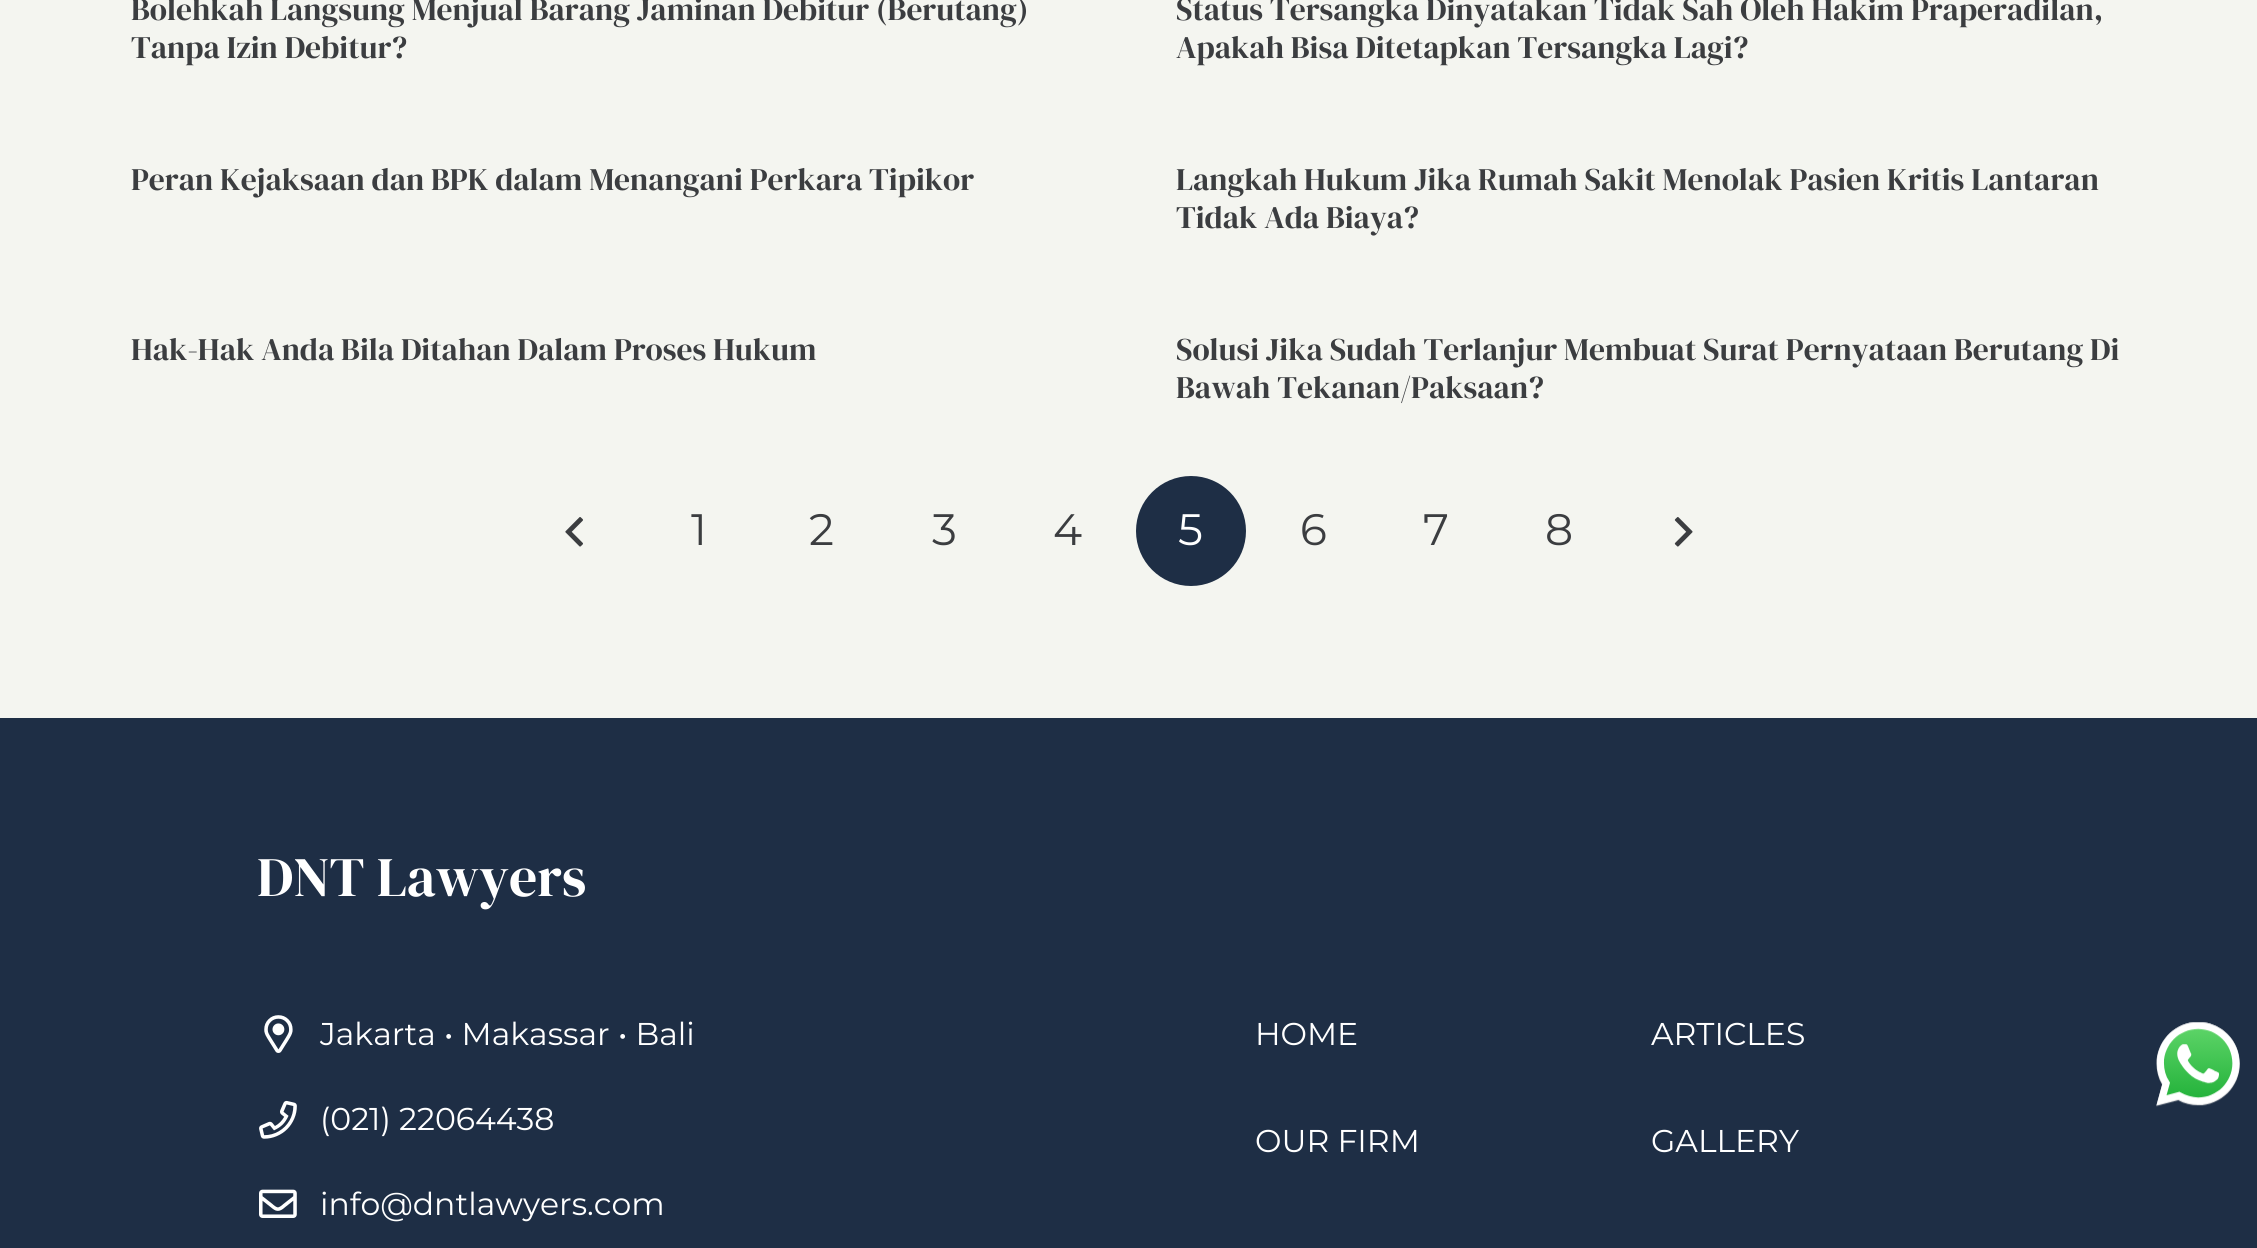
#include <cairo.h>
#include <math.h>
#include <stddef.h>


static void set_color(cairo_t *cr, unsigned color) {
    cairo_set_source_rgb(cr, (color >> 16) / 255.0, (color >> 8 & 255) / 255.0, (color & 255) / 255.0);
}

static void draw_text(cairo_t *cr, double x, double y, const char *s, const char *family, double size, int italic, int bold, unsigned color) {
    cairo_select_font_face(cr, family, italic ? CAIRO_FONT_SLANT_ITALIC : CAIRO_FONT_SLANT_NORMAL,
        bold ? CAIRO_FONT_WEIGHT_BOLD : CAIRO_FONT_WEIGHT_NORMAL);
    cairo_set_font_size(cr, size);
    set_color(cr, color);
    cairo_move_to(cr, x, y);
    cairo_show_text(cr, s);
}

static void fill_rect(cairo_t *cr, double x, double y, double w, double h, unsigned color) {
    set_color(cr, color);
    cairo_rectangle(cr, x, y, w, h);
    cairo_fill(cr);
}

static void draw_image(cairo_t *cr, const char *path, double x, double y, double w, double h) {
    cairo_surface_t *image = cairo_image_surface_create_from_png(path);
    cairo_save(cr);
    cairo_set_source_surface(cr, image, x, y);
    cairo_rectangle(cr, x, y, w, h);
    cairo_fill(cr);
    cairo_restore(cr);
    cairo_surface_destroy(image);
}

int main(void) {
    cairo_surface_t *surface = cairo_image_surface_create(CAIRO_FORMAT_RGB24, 2257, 1248);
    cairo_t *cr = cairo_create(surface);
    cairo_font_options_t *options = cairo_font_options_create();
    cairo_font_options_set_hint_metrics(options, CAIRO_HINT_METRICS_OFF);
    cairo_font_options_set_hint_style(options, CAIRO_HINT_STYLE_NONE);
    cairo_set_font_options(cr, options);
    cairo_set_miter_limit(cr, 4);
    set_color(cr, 0xF4F5F0);
    cairo_paint(cr);
    draw_text(cr, 131, 20, "Bolehkah Langsung Menjual Barang Jaminan Debitur (Berutang)", "DM Serif Display", 31.5, 0, 0, 0x3B3D40);
    draw_text(cr, 131, 58, "Tanpa Izin Debitur?", "DM Serif Display", 31.5, 0, 0, 0x3B3D40);
    draw_text(cr, 1176, 20, "Status Tersangka Dinyatakan Tidak Sah Oleh Hakim Praperadilan,", "DM Serif Display", 31.5, 0, 0, 0x3B3D40);
    draw_text(cr, 1176, 58, "Apakah Bisa Ditetapkan Tersangka Lagi?", "DM Serif Display", 31.5, 0, 0, 0x3B3D40);
    draw_text(cr, 131, 190, "Peran Kejaksaan dan BPK dalam Menangani Perkara Tipikor", "DM Serif Display", 31.5, 0, 0, 0x3B3D40);
    draw_text(cr, 1176, 190, "Langkah Hukum Jika Rumah Sakit Menolak Pasien Kritis Lantaran", "DM Serif Display", 31.5, 0, 0, 0x3B3D40);
    draw_text(cr, 1176, 228, "Tidak Ada Biaya?", "DM Serif Display", 31.5, 0, 0, 0x3B3D40);
    draw_text(cr, 131, 360, "Hak-Hak Anda Bila Ditahan Dalam Proses Hukum", "DM Serif Display", 31.5, 0, 0, 0x3B3D40);
    draw_text(cr, 1176, 360, "Solusi Jika Sudah Terlanjur Membuat Surat Pernyataan Berutang Di", "DM Serif Display", 31.5, 0, 0, 0x3B3D40);
    draw_text(cr, 1176, 398, "Bawah Tekanan/Paksaan?", "DM Serif Display", 31.5, 0, 0, 0x3B3D40);
    draw_image(cr, "assets/img1.png", 565, 517, 18, 30);
    draw_text(cr, 691, 545, "1", "Montserrat", 44, 0, 0, 0x3B3D40);
    draw_text(cr, 809, 545, "2", "Montserrat", 44, 0, 0, 0x3B3D40);
    draw_text(cr, 932, 545, "3", "Montserrat", 44, 0, 0, 0x3B3D40);
    draw_text(cr, 1053, 545, "4", "Montserrat", 44, 0, 0, 0x3B3D40);
    set_color(cr, 0x1E2E45);
    cairo_new_path(cr);
    cairo_arc(cr, 1191, 531, 55, 0, 2 * M_PI);
    cairo_fill(cr);
    draw_text(cr, 1178, 545, "5", "Montserrat", 44, 0, 0, 0xFFFFFF);
    draw_text(cr, 1300, 545, "6", "Montserrat", 44, 0, 0, 0x3B3D40);
    draw_text(cr, 1423, 545, "7", "Montserrat", 44, 0, 0, 0x3B3D40);
    draw_text(cr, 1545, 545, "8", "Montserrat", 44, 0, 0, 0x3B3D40);
    draw_image(cr, "assets/img2.png", 1674, 517, 19, 30);
    fill_rect(cr, 0, 718, 2257, 530, 0x1E2E45);
    draw_text(cr, 257, 896, "DNT Lawyers", "DM Serif Display", 55.75, 0, 0, 0xFFFFFF);
    draw_image(cr, "assets/img3.png", 264, 1015, 29, 38);
    draw_text(cr, 320, 1045, "Jakarta • Makassar • Bali", "Montserrat", 31.5, 0, 0, 0xFFFFFF);
    draw_image(cr, "assets/img4.png", 259, 1100, 38, 39);
    draw_text(cr, 320, 1130, "(021) 22064438", "Montserrat", 31.5, 0, 0, 0xFFFFFF);
    draw_image(cr, "assets/img5.png", 259, 1189, 38, 29);
    draw_text(cr, 320, 1215, "info@dntlawyers.com", "Montserrat", 31.5, 0, 0, 0xFFFFFF);
    draw_text(cr, 1255, 1045, "HOME", "Montserrat", 31.5, 0, 0, 0xFFFFFF);
    draw_text(cr, 1255, 1152, "OUR FIRM", "Montserrat", 31.5, 0, 0, 0xFFFFFF);
    draw_text(cr, 1651, 1045, "ARTICLES", "Montserrat", 31.5, 0, 0, 0xFFFFFF);
    draw_text(cr, 1651, 1152, "GALLERY", "Montserrat", 31.5, 0, 0, 0xFFFFFF);
    draw_image(cr, "assets/img6.png", 2156, 1022, 84, 85);
    cairo_surface_write_to_png(surface, "output.png");
    cairo_font_options_destroy(options);
    cairo_destroy(cr);
    cairo_surface_destroy(surface);
    return 0;
}
